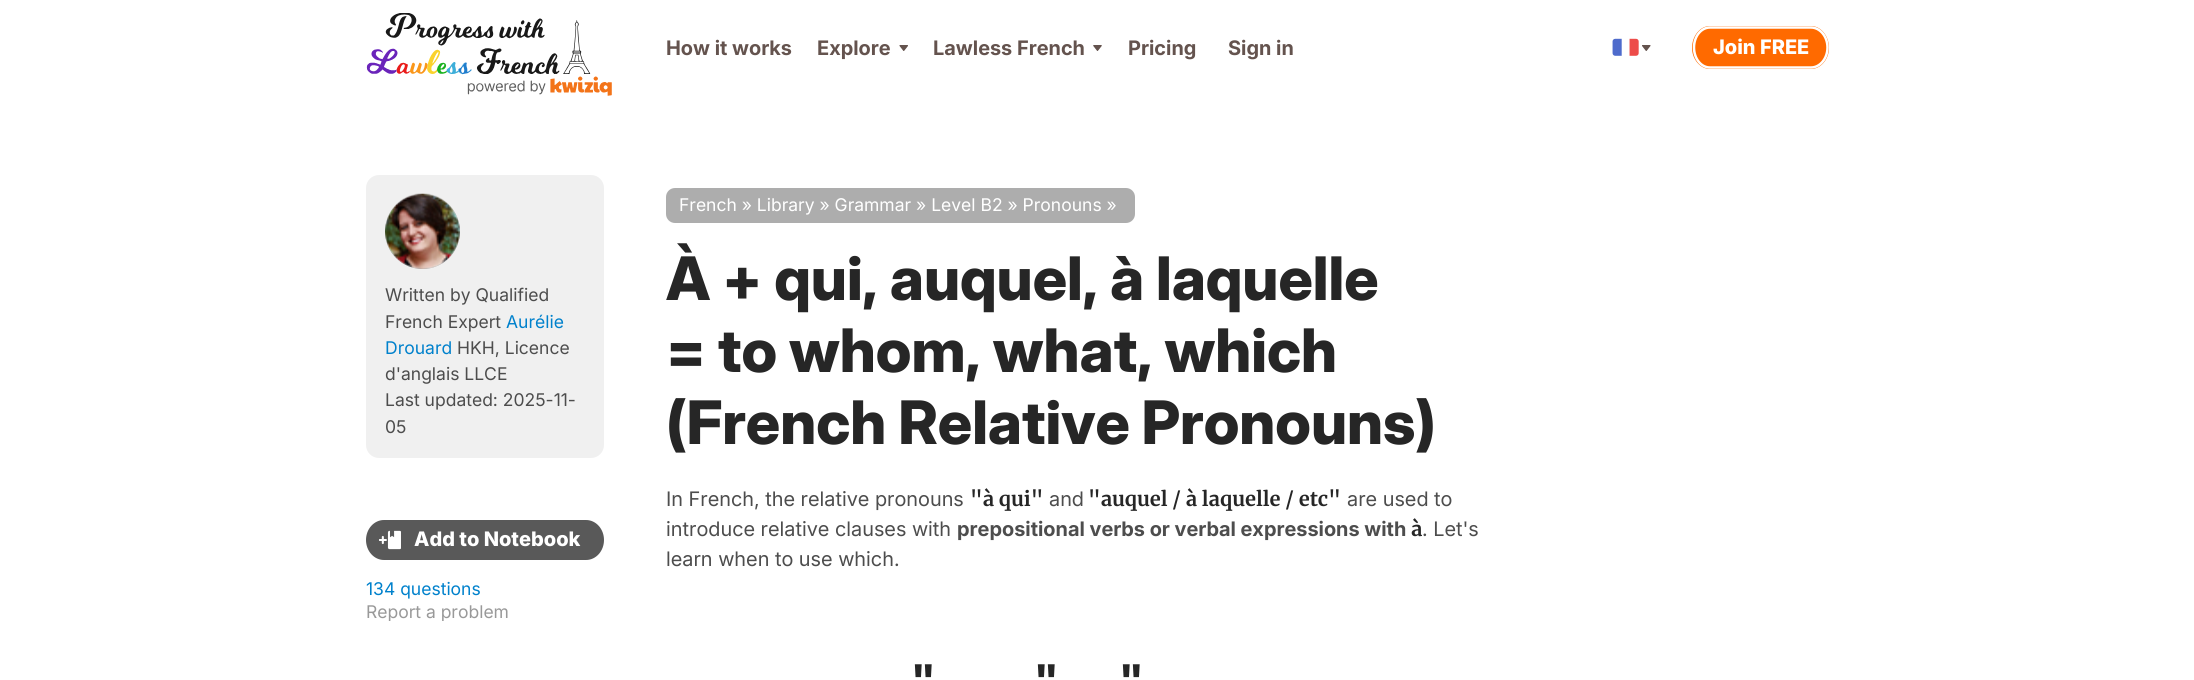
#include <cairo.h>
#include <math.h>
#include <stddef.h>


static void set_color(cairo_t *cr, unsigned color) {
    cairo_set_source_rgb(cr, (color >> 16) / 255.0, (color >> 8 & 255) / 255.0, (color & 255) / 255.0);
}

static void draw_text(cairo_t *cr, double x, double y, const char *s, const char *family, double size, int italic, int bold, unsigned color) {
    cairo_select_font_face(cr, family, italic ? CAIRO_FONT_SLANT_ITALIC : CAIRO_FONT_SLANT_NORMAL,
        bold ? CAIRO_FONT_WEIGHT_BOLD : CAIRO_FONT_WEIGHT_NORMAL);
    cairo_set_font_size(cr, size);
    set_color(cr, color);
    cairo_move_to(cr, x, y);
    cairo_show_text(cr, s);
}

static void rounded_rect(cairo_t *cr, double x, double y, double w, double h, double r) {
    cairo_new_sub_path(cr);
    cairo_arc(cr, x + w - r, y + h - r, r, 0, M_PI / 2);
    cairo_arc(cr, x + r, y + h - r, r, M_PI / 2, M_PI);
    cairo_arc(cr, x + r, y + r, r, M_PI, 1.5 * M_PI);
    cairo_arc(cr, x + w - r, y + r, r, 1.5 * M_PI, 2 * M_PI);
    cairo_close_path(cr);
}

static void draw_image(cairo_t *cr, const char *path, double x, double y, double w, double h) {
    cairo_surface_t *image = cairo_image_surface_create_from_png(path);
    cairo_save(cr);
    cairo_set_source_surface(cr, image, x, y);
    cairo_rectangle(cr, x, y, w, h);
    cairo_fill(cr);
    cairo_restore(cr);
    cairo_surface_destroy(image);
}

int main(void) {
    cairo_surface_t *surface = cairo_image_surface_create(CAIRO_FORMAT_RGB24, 2194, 680);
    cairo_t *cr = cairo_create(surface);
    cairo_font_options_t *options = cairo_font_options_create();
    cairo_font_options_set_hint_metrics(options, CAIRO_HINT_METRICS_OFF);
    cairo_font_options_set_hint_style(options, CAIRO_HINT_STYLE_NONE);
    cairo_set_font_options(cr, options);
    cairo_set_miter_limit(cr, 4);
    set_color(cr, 0xFFFFFF);
    cairo_paint(cr);
    draw_image(cr, "assets/img1.png", 366, 13, 246, 83);
    draw_text(cr, 666, 55, "How it works", "Inter", 20, 0, 1, 0x64534E);
    draw_text(cr, 817, 55, "Explore", "Inter", 20, 0, 1, 0x64534E);
    draw_image(cr, "assets/img2.png", 899, 45, 9, 6);
    draw_text(cr, 933, 55, "Lawless French", "Inter", 20, 0, 1, 0x64534E);
    draw_image(cr, "assets/img3.png", 1093, 45, 9, 6);
    draw_text(cr, 1128, 55, "Pricing", "Inter", 20, 0, 1, 0x64534E);
    draw_text(cr, 1228, 55, "Sign in", "Inter", 20, 0, 1, 0x64534E);
    draw_image(cr, "assets/img4.png", 1612, 38, 27, 18);
    draw_image(cr, "assets/img5.png", 1642, 45, 9, 6);
    set_color(cr, 0xFF6A00);
    cairo_new_path(cr);
    cairo_move_to(cr, 1710, 26);
    cairo_line_to(cr, 1811, 26);
    cairo_curve_to(cr, 1821, 26, 1829, 36, 1829, 48);
    cairo_curve_to(cr, 1829, 59, 1821, 69, 1811, 69);
    cairo_line_to(cr, 1710, 69);
    cairo_curve_to(cr, 1700, 69, 1692, 59, 1692, 48);
    cairo_curve_to(cr, 1692, 36, 1700, 26, 1710, 26);
    cairo_close_path(cr);
    cairo_fill(cr);
    cairo_new_path(cr);
    cairo_move_to(cr, 1710, 27.5);
    cairo_line_to(cr, 1811, 27.5);
    cairo_curve_to(cr, 1820, 27.5, 1827.5, 36.5, 1827.5, 47.5);
    cairo_curve_to(cr, 1827.5, 58.5, 1820, 67.5, 1811, 67.5);
    cairo_line_to(cr, 1710, 67.5);
    cairo_curve_to(cr, 1701, 67.5, 1694, 58.5, 1694, 47.5);
    cairo_curve_to(cr, 1694, 36.5, 1701, 27.5, 1710, 27.5);
    cairo_close_path(cr);
    set_color(cr, 0xFFFFFF);
    cairo_set_line_width(cr, 2.5);
    cairo_stroke(cr);
    draw_text(cr, 1713, 54, "Join FREE", "Inter ExtraBold", 20, 0, 0, 0xFFFFFF);
    set_color(cr, 0xF0F0F0);
    rounded_rect(cr, 366, 175, 238, 283, 13);
    cairo_fill(cr);
    set_color(cr, 0xA5A5A5);
    cairo_arc(cr, 422.5, 231.5, 37.5, 0, 2 * M_PI);
    cairo_fill(cr);
    draw_image(cr, "assets/img6.png", 385, 193, 75, 76);
    draw_text(cr, 385, 301, "Written by Qualified", "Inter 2", 17.5, 0, 0, 0x4D4D4D);
    draw_text(cr, 385, 328, "French Expert", "Inter 2", 17.5, 0, 0, 0x4D4D4D);
    draw_text(cr, 506, 328, "Aurélie", "Inter 2", 17.5, 0, 0, 0x0081CC);
    draw_text(cr, 385, 354, "Drouard", "Inter 2", 17.5, 0, 0, 0x0081CC);
    draw_text(cr, 457, 354, "HKH, Licence", "Inter 2", 17.5, 0, 0, 0x4D4D4D);
    draw_text(cr, 385, 380, "d'anglais LLCE", "Inter 2", 17.5, 0, 0, 0x4D4D4D);
    draw_text(cr, 385, 406, "Last updated: 2025-11-", "Inter 2", 17.5, 0, 0, 0x4D4D4D);
    draw_text(cr, 385, 433, "05", "Inter 2", 17.5, 0, 0, 0x4D4D4D);
    set_color(cr, 0x595959);
    cairo_new_path(cr);
    cairo_move_to(cr, 384, 520);
    cairo_line_to(cr, 586, 520);
    cairo_curve_to(cr, 596, 520, 604, 529, 604, 540);
    cairo_curve_to(cr, 604, 551, 596, 560, 586, 560);
    cairo_line_to(cr, 384, 560);
    cairo_curve_to(cr, 374, 560, 366, 551, 366, 540);
    cairo_curve_to(cr, 366, 529, 374, 520, 384, 520);
    cairo_close_path(cr);
    cairo_fill(cr);
    draw_image(cr, "assets/img7.png", 379, 530, 22, 20);
    draw_text(cr, 414, 546, "Add to Notebook", "Inter ExtraBold", 20, 0, 0, 0xFFFFFF);
    draw_text(cr, 366, 595, "134 questions", "Inter 2", 17.5, 0, 0, 0x0081CC);
    cairo_save(cr);
    cairo_rectangle(cr, 366, 520, 238, 101);
    cairo_clip(cr);
    draw_text(cr, 366, 618, "Report a problem", "Inter 2", 17.5, 0, 0, 0x999999);
    cairo_restore(cr);
    set_color(cr, 0xADADAD);
    rounded_rect(cr, 666, 188, 469, 35, 9);
    cairo_fill(cr);
    draw_text(cr, 679, 211, "French » Library » Grammar » Level B2 » Pronouns »", "Inter 2", 17.5, 0, 0, 0xFFFFFF);
    draw_text(cr, 666, 300, "À + qui, auquel, à laquelle", "Inter 2 ExtraBold", 60, 0, 0, 0x262626);
    draw_text(cr, 666, 372, "= to whom, what, which", "Inter 2 ExtraBold", 60, 0, 0, 0x262626);
    draw_text(cr, 666, 444, "(French Relative Pronouns)", "Inter 2 ExtraBold", 60, 0, 0, 0x262626);
    draw_text(cr, 666, 506, "In French, the relative pronouns", "Inter", 20, 0, 0, 0x4D4D4D);
    draw_text(cr, 970, 506, "\"à qui\"", "Merriweather", 20, 0, 1, 0x262626);
    draw_text(cr, 1049, 506, "and", "Inter", 20, 0, 0, 0x4D4D4D);
    draw_text(cr, 1088, 506, "\"auquel / à laquelle / etc\"", "Merriweather", 20, 0, 1, 0x262626);
    draw_text(cr, 1347, 506, "are used to", "Inter", 20, 0, 0, 0x4D4D4D);
    draw_text(cr, 666, 536, "introduce relative clauses with", "Inter", 20, 0, 0, 0x4D4D4D);
    draw_text(cr, 957, 536, "prepositional verbs or verbal expressions with", "Inter", 20, 0, 1, 0x4D4D4D);
    draw_text(cr, 1411, 536, "à", "Merriweather", 20, 0, 1, 0x262626);
    draw_text(cr, 1422, 536, ". Let's", "Inter", 20, 0, 0, 0x4D4D4D);
    draw_text(cr, 666, 566, "learn when to use which.", "Inter", 20, 0, 0, 0x4D4D4D);
    draw_text(cr, 912, 697, "\"", "Inter 2 ExtraBold", 45, 0, 0, 0x262626);
    draw_text(cr, 1035, 697, "\"", "Inter 2 ExtraBold", 45, 0, 0, 0x262626);
    draw_text(cr, 1120, 697, "\"", "Inter 2 ExtraBold", 45, 0, 0, 0x262626);
    cairo_surface_write_to_png(surface, "output.png");
    cairo_font_options_destroy(options);
    cairo_destroy(cr);
    cairo_surface_destroy(surface);
    return 0;
}
